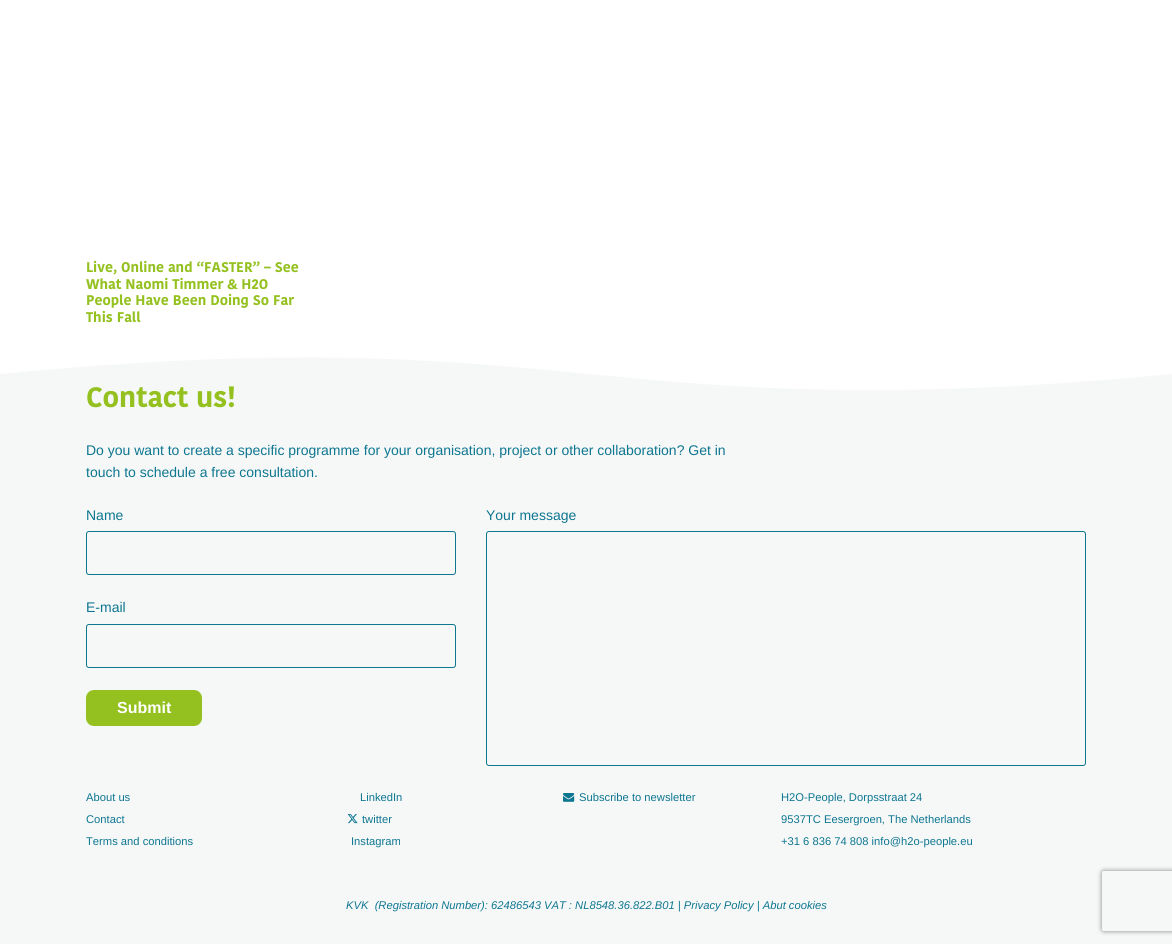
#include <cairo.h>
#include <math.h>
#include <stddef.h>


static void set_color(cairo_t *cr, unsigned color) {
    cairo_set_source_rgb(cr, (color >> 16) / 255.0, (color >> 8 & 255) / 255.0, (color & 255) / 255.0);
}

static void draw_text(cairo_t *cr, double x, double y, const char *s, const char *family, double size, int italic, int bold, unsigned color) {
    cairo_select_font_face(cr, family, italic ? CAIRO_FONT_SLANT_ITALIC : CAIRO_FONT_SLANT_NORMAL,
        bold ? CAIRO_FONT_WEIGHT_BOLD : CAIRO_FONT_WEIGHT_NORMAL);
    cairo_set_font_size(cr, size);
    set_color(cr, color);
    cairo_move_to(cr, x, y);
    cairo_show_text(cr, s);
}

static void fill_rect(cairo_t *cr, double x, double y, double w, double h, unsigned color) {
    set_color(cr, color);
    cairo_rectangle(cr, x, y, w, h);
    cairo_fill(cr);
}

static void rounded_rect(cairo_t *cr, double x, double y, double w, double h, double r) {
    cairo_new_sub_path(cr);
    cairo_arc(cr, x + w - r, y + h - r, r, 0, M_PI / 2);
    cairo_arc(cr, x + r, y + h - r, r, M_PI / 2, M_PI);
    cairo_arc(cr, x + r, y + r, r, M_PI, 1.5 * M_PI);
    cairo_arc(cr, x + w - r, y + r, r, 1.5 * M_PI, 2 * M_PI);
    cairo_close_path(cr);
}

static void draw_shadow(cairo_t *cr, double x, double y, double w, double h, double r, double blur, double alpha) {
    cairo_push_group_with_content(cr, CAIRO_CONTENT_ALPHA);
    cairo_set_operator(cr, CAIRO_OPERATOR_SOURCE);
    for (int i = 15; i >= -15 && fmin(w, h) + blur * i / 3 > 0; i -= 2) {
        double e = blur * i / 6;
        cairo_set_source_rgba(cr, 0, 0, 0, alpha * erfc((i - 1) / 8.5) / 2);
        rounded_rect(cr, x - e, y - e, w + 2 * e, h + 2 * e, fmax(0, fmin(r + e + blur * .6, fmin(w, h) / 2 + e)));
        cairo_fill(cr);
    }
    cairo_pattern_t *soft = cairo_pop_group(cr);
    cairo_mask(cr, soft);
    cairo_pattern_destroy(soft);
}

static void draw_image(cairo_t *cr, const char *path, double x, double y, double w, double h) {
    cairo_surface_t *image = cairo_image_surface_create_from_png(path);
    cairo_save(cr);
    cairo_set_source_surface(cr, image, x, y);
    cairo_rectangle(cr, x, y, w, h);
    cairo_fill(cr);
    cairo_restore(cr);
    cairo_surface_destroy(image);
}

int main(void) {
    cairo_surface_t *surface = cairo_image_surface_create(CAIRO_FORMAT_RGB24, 1172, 945);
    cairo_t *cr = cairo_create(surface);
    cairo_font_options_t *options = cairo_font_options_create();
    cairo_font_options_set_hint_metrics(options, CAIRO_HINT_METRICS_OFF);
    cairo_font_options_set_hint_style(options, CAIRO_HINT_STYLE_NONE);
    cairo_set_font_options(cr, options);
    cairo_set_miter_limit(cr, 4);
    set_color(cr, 0xFFFFFF);
    cairo_paint(cr);
    draw_text(cr, 86, 272, "Live, Online and “FASTER” – See", "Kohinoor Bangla", 14, 0, 1, 0x94C11F);
    draw_text(cr, 86, 289, "What Naomi Timmer & H2O", "Kohinoor Bangla", 14, 0, 1, 0x94C11F);
    draw_text(cr, 86, 305, "People Have Been Doing So Far", "Kohinoor Bangla", 14, 0, 1, 0x94C11F);
    draw_text(cr, 86, 322, "This Fall", "Kohinoor Bangla", 14, 0, 1, 0x94C11F);
    fill_rect(cr, 0, 357, 1172, 587, 0xF6F8F8);
    cairo_save(cr);
    cairo_rectangle(cr, 0, 356, 1172, 37);
    cairo_clip(cr);
    set_color(cr, 0xFFFFFF);
    cairo_new_path(cr);
    cairo_move_to(cr, 1172, 374);
    cairo_curve_to(cr, 586, 430, 586, 317, 0, 374);
    cairo_line_to(cr, 0, 355);
    cairo_line_to(cr, 1172, 355);
    cairo_close_path(cr);
    cairo_fill(cr);
    cairo_restore(cr);
    draw_text(cr, 86, 407, "Contact us!", "Kohinoor Bangla", 28, 0, 1, 0x94C11F);
    draw_text(cr, 86, 455, "Do you want to create a specific programme for your organisation, project or other collaboration? Get in", "Liberation Sans", 14, 0, 0, 0x0D7690);
    draw_text(cr, 86, 477, "touch to schedule a free consultation.", "Liberation Sans", 14, 0, 0, 0x0D7690);
    draw_text(cr, 86, 520, "Name", "Liberation Sans", 14, 0, 0, 0x0D7690);
    rounded_rect(cr, 86.5, 531.5, 369, 43, 2.5);
    cairo_set_line_width(cr, 1);
    cairo_stroke(cr);
    draw_text(cr, 86, 612, "E-mail", "Liberation Sans", 14, 0, 0, 0x0D7690);
    rounded_rect(cr, 86.5, 624.5, 369, 43, 2.5);
    cairo_stroke(cr);
    set_color(cr, 0x94C11F);
    rounded_rect(cr, 87, 691, 114, 34, 7);
    cairo_fill_preserve(cr);
    cairo_set_line_width(cr, 2);
    cairo_stroke(cr);
    draw_text(cr, 117, 713, "Submit", "Liberation Sans", 16, 0, 1, 0xFFFFFF);
    draw_text(cr, 486, 520, "Your message", "Liberation Sans", 14, 0, 0, 0x0D7690);
    rounded_rect(cr, 486.5, 531.5, 599, 234, 2.5);
    cairo_set_line_width(cr, 1);
    cairo_stroke(cr);
    draw_text(cr, 86, 801, "About us", "Liberation Sans", 11.2, 0, 0, 0x0D7690);
    draw_text(cr, 86, 823, "Contact", "Liberation Sans", 11.2, 0, 0, 0x0D7690);
    draw_text(cr, 86, 845, "Terms and conditions", "Liberation Sans", 11.2, 0, 0, 0x0D7690);
    draw_text(cr, 360, 801, "LinkedIn", "Liberation Sans", 11.2, 0, 0, 0x0D7690);
    draw_image(cr, "assets/img1.png", 347, 814, 11, 10);
    draw_text(cr, 362, 823, "twitter", "Liberation Sans", 11.2, 0, 0, 0x0D7690);
    draw_text(cr, 351, 845, "Instagram", "Liberation Sans", 11.2, 0, 0, 0x0D7690);
    draw_image(cr, "assets/img2.png", 563, 793, 12, 9);
    draw_text(cr, 579, 801, "Subscribe to newsletter", "Liberation Sans", 11.2, 0, 0, 0x0D7690);
    draw_text(cr, 781, 801, "H2O-People, Dorpsstraat 24", "Liberation Sans", 11.2, 0, 0, 0x0D7690);
    draw_text(cr, 781, 823, "9537TC Eesergroen, The Netherlands", "Liberation Sans", 11.2, 0, 0, 0x0D7690);
    draw_text(cr, 781, 845, "+31 6 836 74 808 info@h2o-people.eu", "Liberation Sans", 11.2, 0, 0, 0x0D7690);
    draw_text(cr, 346, 909, "KVK  (Registration Number): 62486543 VAT : NL8548.36.822.B01 | Privacy Policy | Abut cookies", "Liberation Sans", 11.2, 1, 0, 0x0D7690);
    cairo_save(cr);
    cairo_set_fill_rule(cr, CAIRO_FILL_RULE_EVEN_ODD);
    cairo_new_path(cr);
    cairo_move_to(cr, 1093, 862);
    cairo_line_to(cr, 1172, 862);
    cairo_line_to(cr, 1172, 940);
    cairo_line_to(cr, 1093, 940);
    cairo_close_path(cr);
    cairo_move_to(cr, 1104, 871);
    cairo_line_to(cr, 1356, 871);
    cairo_curve_to(cr, 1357, 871, 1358, 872, 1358, 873);
    cairo_line_to(cr, 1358, 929);
    cairo_curve_to(cr, 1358, 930, 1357, 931, 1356, 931);
    cairo_line_to(cr, 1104, 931);
    cairo_curve_to(cr, 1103, 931, 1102, 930, 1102, 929);
    cairo_line_to(cr, 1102, 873);
    cairo_curve_to(cr, 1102, 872, 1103, 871, 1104, 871);
    cairo_close_path(cr);
    cairo_clip(cr);
    set_color(cr, 0x808080);
    draw_shadow(cr, 1102, 871, 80, 60, 2, 2.5, 1);
    cairo_restore(cr);
    cairo_surface_write_to_png(surface, "output.png");
    cairo_font_options_destroy(options);
    cairo_destroy(cr);
    cairo_surface_destroy(surface);
    return 0;
}
